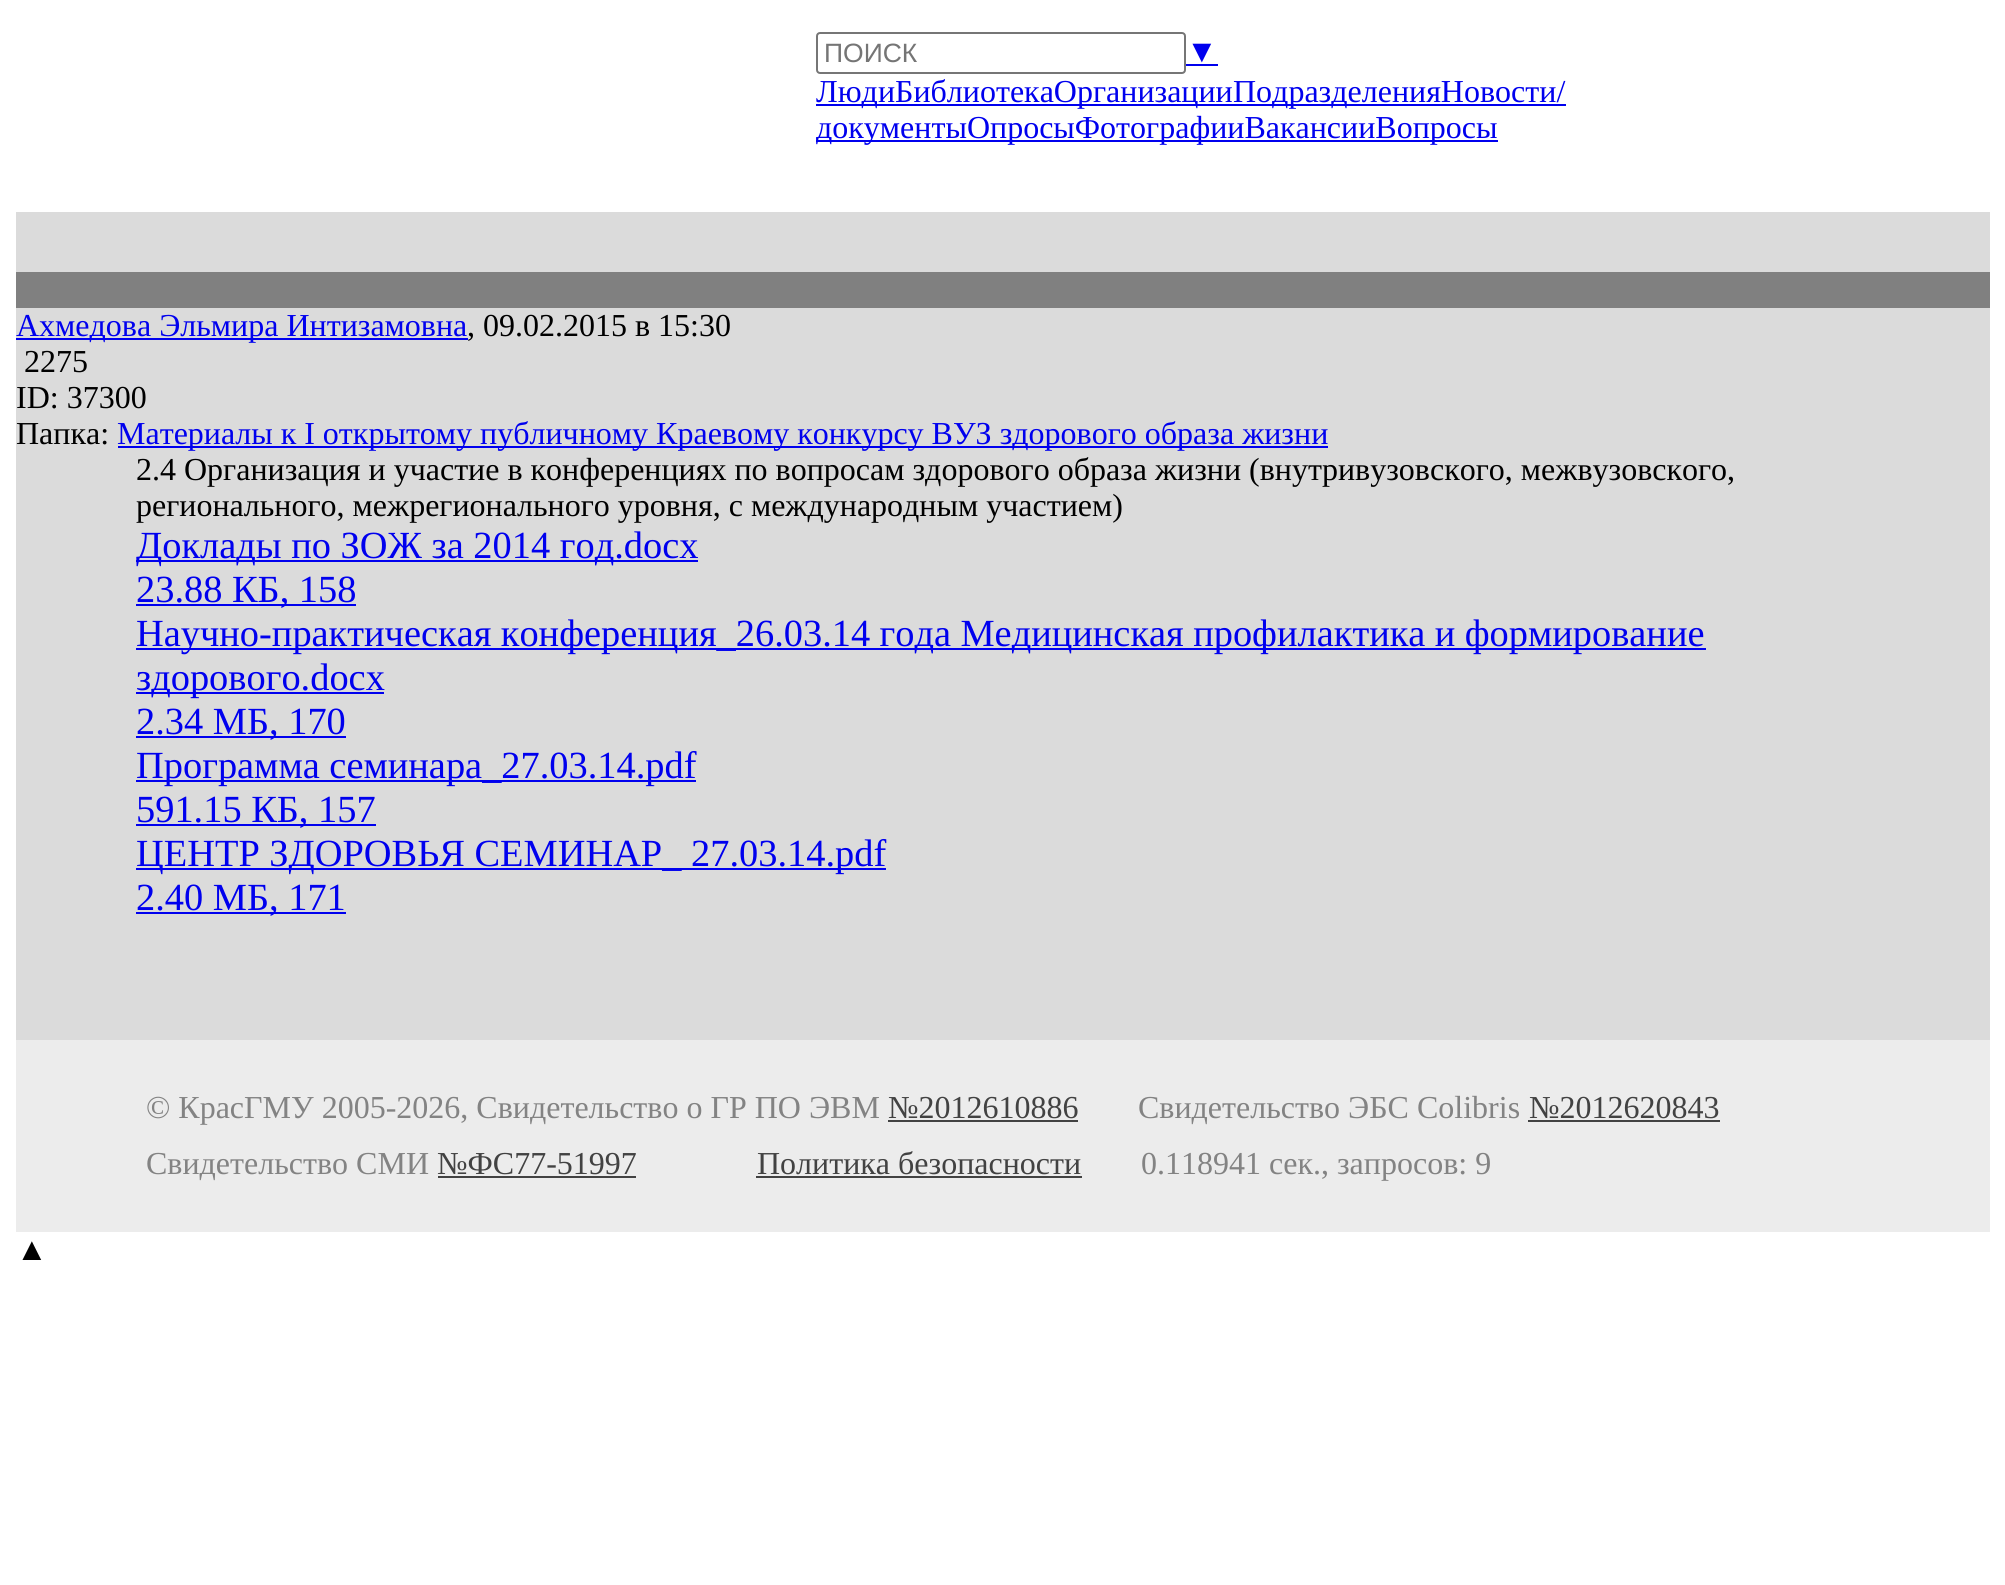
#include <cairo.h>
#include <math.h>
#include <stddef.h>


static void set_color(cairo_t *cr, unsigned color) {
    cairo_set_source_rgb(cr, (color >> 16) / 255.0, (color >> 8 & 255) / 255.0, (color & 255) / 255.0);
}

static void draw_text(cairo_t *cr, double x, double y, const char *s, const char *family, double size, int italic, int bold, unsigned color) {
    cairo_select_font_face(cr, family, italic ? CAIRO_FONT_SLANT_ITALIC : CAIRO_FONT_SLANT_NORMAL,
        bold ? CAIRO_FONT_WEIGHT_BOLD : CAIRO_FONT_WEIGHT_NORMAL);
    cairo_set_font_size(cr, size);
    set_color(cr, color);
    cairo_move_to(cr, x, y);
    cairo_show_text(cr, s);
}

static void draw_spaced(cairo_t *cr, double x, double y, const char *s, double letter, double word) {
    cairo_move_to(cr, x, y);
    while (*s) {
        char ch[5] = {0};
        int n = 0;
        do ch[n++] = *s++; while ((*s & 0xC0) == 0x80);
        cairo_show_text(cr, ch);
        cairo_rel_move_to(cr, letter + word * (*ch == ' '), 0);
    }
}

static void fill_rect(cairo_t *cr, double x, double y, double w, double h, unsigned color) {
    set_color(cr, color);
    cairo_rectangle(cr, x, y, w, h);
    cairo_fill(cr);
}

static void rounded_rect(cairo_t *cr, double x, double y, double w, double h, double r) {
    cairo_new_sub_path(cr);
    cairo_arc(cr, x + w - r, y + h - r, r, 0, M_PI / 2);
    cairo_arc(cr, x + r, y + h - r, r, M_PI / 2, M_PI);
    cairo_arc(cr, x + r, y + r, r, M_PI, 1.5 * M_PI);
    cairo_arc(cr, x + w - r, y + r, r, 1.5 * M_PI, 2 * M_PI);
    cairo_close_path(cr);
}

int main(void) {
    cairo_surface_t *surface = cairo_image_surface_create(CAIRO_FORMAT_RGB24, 2005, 1585);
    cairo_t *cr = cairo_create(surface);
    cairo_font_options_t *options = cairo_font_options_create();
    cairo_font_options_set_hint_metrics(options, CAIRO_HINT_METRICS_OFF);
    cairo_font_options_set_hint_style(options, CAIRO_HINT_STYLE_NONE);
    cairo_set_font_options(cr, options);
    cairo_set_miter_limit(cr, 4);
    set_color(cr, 0xFFFFFF);
    cairo_paint(cr);
    rounded_rect(cr, 817, 33, 368, 40, 3);
    set_color(cr, 0x767676);
    cairo_stroke(cr);
    draw_text(cr, 824, 62, "ПОИСК", "Liberation Sans", 26.5, 0, 0, 0x757575);
    draw_text(cr, 1186, 62, "▼", "Liberation Serif", 32, 0, 0, 0x0000EE);
    fill_rect(cr, 1186, 64, 32, 2, 0x0000EE);
    fill_rect(cr, 816, 104, 416, 2, 0x0000EE);
    draw_text(cr, 816, 102, "ЛюдиБиблиотекаОрганизации", "Liberation Serif", 32, 0, 0, 0x0000EE);
    fill_rect(cr, 1232, 104, 208, 2, 0x0000EE);
    draw_text(cr, 1233, 102, "ПодразделенияНовости/", "Liberation Serif", 32, 0, 0, 0x0000EE);
    fill_rect(cr, 816, 140, 682, 2, 0x0000EE);
    draw_text(cr, 816, 138, "документыОпросыФотографииВакансииВопросы", "Liberation Serif", 32, 0, 0, 0x0000EE);
    fill_rect(cr, 1440, 104, 126, 2, 0x0000EE);
    fill_rect(cr, 16, 212, 1974, 828, 0xDBDBDB);
    fill_rect(cr, 16, 272, 1974, 36, 0x808080);
    fill_rect(cr, 16, 338, 452, 2, 0x0000EE);
    draw_text(cr, 16, 336, "Ахмедова Эльмира Интизамовна", "Liberation Serif", 32, 0, 0, 0x0000EE);
    draw_text(cr, 467, 336, ", 09.02.2015 в 15:30", "Liberation Serif", 32, 0, 0, 0x000000);
    draw_text(cr, 24, 372, "2275", "Liberation Serif", 32, 0, 0, 0x000000);
    draw_text(cr, 16, 408, "ID: 37300", "Liberation Serif", 32, 0, 0, 0x000000);
    draw_text(cr, 16, 444, "Папка:", "Liberation Serif", 32, 0, 0, 0x000000);
    fill_rect(cr, 118, 446, 1210, 2, 0x0000EE);
    draw_text(cr, 117, 444, "Материалы к I открытому публичному Краевому конкурсу ВУЗ здорового образа жизни", "Liberation Serif", 32, 0, 0, 0x0000EE);
    draw_text(cr, 136, 480, "2.4 Организация и участие в конференциях по вопросам здорового образа жизни (внутривузовского, межвузовского,", "Liberation Serif", 32, 0, 0, 0x000000);
    draw_text(cr, 136, 516, "регионального, межрегионального уровня, с международным участием)", "Liberation Serif", 32, 0, 0, 0x000000);
    fill_rect(cr, 136, 560, 562, 2, 0x0000EE);
    draw_text(cr, 136, 558, "Доклады по ЗОЖ за 2014 год.docx", "Liberation Serif", 38.4, 0, 0, 0x0000EE);
    fill_rect(cr, 136, 604, 220, 2, 0x0000EE);
    draw_text(cr, 136, 602, "23.88 КБ, 158", "Liberation Serif", 38.4, 0, 0, 0x0000EE);
    fill_rect(cr, 136, 648, 1570, 2, 0x0000EE);
    draw_spaced(cr, 136, 646, "Научно-практическая конференция_26.03.14 года Медицинская профилактика и формирование", 0, -0.25);
    fill_rect(cr, 136, 692, 248, 2, 0x0000EE);
    draw_text(cr, 136, 690, "здорового.docx", "Liberation Serif", 38.4, 0, 0, 0x0000EE);
    fill_rect(cr, 136, 736, 210, 2, 0x0000EE);
    draw_text(cr, 136, 734, "2.34 МБ, 170", "Liberation Serif", 38.4, 0, 0, 0x0000EE);
    fill_rect(cr, 136, 780, 560, 2, 0x0000EE);
    draw_text(cr, 136, 778, "Программа семинара_27.03.14.pdf", "Liberation Serif", 38.4, 0, 0, 0x0000EE);
    fill_rect(cr, 136, 824, 240, 2, 0x0000EE);
    draw_text(cr, 136, 822, "591.15 КБ, 157", "Liberation Serif", 38.4, 0, 0, 0x0000EE);
    fill_rect(cr, 136, 868, 750, 2, 0x0000EE);
    draw_text(cr, 136, 866, "ЦЕНТР ЗДОРОВЬЯ СЕМИНАР_ 27.03.14.pdf", "Liberation Serif", 38.4, 0, 0, 0x0000EE);
    fill_rect(cr, 136, 912, 210, 2, 0x0000EE);
    draw_text(cr, 136, 910, "2.40 МБ, 171", "Liberation Serif", 38.4, 0, 0, 0x0000EE);
    fill_rect(cr, 16, 1040, 1974, 192, 0xECECEC);
    draw_text(cr, 146, 1118, "© КрасГМУ 2005-2026, Свидетельство о ГР ПО ЭВМ", "Liberation Serif", 32, 0, 0, 0x838383);
    draw_text(cr, 888, 1118, "№2012610886", "Liberation Serif", 32, 0, 0, 0x424242);
    fill_rect(cr, 888, 1120, 190, 2, 0x424242);
    draw_text(cr, 1138, 1118, "Свидетельство ЭБС Colibris", "Liberation Serif", 32, 0, 0, 0x838383);
    draw_text(cr, 1529, 1118, "№2012620843", "Liberation Serif", 32, 0, 0, 0x424242);
    fill_rect(cr, 1528, 1120, 192, 2, 0x424242);
    draw_text(cr, 146, 1174, "Свидетельство СМИ", "Liberation Serif", 32, 0, 0, 0x838383);
    draw_text(cr, 437, 1174, "№ФС77-51997", "Liberation Serif", 32, 0, 0, 0x424242);
    fill_rect(cr, 438, 1176, 198, 2, 0x424242);
    draw_text(cr, 757, 1174, "Политика безопасности", "Liberation Serif", 32, 0, 0, 0x424242);
    fill_rect(cr, 756, 1176, 326, 2, 0x424242);
    draw_text(cr, 1141, 1174, "0.118941 сек., запросов: 9", "Liberation Serif", 32, 0, 0, 0x838383);
    draw_text(cr, 16, 1260, "▲", "Liberation Serif", 32, 0, 0, 0x000000);
    cairo_surface_write_to_png(surface, "output.png");
    cairo_font_options_destroy(options);
    cairo_destroy(cr);
    cairo_surface_destroy(surface);
    return 0;
}
